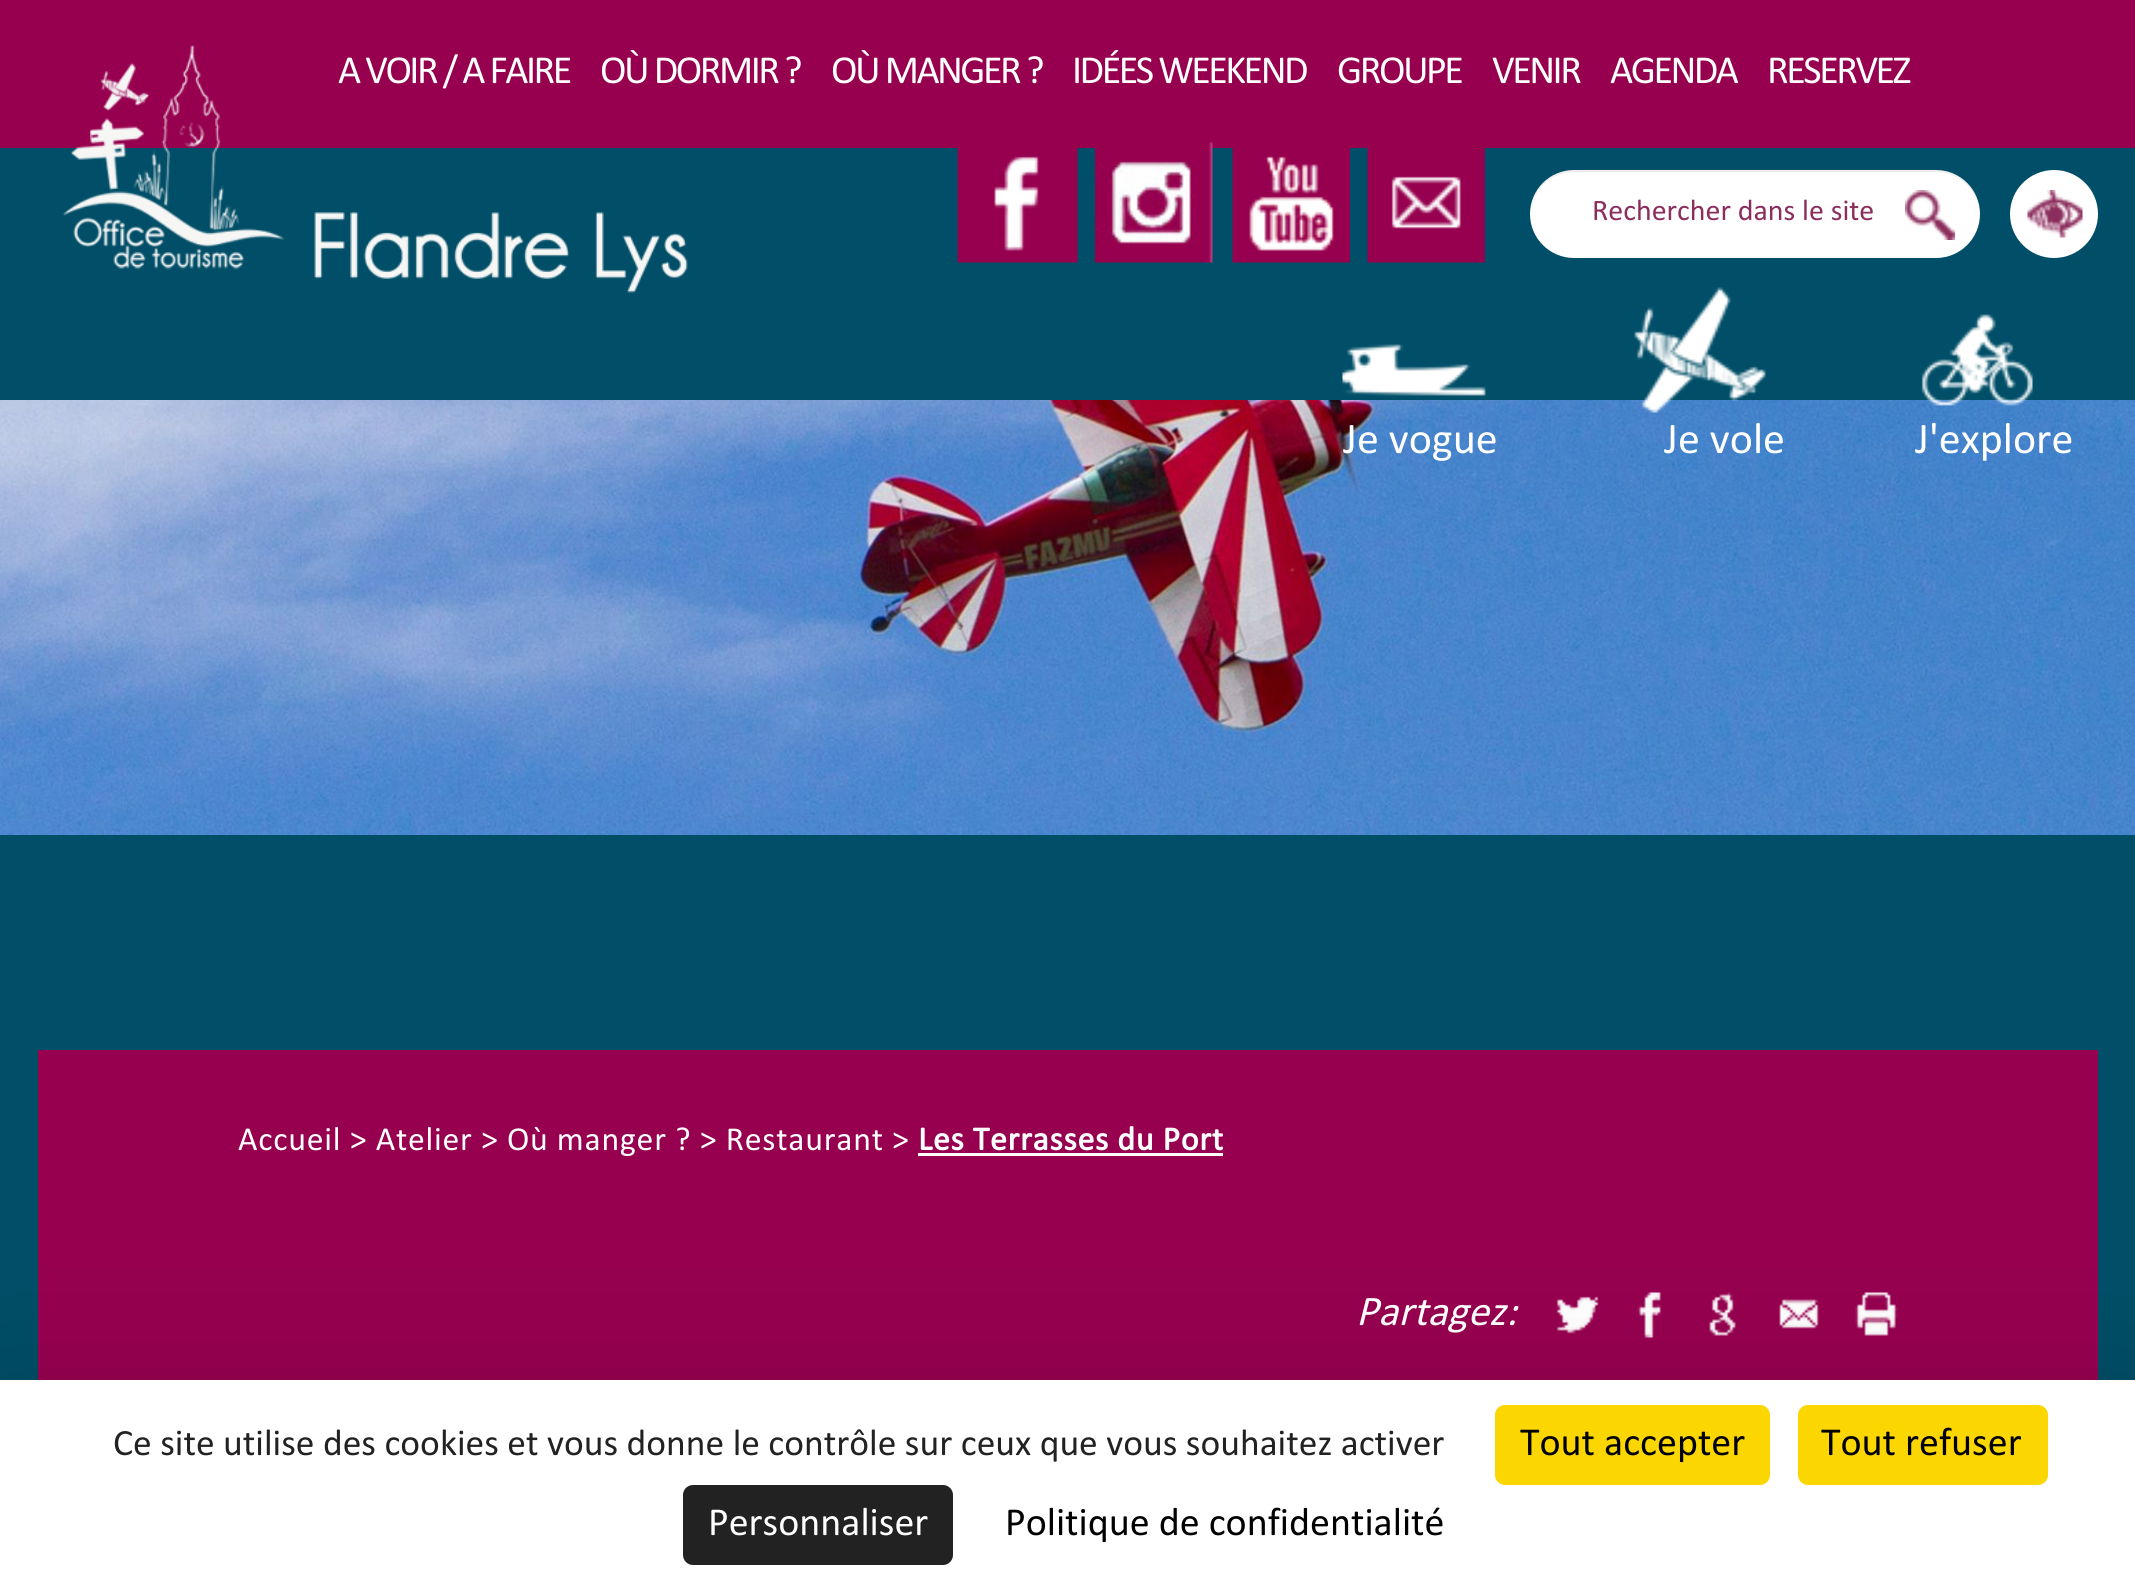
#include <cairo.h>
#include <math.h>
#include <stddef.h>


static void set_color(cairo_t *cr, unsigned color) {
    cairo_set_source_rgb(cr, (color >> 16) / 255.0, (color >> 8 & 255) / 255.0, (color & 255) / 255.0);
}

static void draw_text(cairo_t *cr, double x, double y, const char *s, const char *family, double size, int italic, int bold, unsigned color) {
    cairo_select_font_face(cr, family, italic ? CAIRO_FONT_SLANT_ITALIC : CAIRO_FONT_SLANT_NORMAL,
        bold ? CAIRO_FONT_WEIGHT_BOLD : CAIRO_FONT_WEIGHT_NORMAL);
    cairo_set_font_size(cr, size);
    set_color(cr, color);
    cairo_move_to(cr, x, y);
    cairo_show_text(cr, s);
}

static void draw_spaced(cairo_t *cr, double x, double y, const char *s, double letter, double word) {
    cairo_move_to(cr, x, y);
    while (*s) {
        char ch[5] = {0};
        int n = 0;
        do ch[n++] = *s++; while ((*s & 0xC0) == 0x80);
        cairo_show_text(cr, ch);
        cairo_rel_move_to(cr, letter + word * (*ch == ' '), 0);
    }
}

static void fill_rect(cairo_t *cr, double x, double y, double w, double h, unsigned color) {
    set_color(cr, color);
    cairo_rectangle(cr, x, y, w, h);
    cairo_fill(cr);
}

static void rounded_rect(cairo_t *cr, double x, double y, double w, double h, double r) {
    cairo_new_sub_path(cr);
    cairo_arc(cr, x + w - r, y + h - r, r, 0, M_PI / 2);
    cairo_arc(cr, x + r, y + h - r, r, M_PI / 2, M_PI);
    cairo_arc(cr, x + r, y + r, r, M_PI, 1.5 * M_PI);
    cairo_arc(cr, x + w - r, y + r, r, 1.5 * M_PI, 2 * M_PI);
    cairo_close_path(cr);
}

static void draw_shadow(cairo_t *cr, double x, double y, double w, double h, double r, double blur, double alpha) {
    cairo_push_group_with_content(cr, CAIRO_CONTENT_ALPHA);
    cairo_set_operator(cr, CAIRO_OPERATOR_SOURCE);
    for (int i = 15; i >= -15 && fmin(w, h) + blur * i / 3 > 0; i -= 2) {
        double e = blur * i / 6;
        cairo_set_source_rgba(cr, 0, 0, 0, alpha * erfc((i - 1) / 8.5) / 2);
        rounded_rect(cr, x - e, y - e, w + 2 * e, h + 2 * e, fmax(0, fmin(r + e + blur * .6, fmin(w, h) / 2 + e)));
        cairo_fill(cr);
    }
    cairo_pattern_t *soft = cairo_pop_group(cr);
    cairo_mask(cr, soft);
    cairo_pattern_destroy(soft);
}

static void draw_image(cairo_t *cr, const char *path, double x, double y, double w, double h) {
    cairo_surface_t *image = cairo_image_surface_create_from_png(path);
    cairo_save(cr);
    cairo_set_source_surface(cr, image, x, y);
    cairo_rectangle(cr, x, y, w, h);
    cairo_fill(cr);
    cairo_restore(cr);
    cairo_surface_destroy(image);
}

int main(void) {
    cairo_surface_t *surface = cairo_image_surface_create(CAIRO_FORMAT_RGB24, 2135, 1588);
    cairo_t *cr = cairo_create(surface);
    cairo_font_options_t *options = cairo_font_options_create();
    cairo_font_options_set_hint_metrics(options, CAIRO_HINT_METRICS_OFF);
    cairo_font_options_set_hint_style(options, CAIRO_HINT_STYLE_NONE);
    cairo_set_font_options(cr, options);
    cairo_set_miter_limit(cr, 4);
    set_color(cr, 0x004E67);
    cairo_paint(cr);
    fill_rect(cr, 0, 0, 2135, 148, 0x96004F);
    draw_image(cr, "assets/img1.png", 62, 45, 626, 248);
    cairo_select_font_face(cr, "Calibri", CAIRO_FONT_SLANT_NORMAL, CAIRO_FONT_WEIGHT_NORMAL);
    cairo_set_font_size(cr, 40);
    set_color(cr, 0xFFFFFF);
    draw_spaced(cr, 338, 83, "A VOIR / A FAIRE", -2.5, 0);
    draw_spaced(cr, 600, 83, "OÙ DORMIR ?", -2.5, 0);
    draw_spaced(cr, 831, 83, "OÙ MANGER ?", -2.5, 0);
    draw_spaced(cr, 1072, 83, "IDÉES WEEKEND", -2.5, 0);
    draw_spaced(cr, 1337, 83, "GROUPE", -2.5, 0);
    draw_spaced(cr, 1492, 83, "VENIR", -2.5, 0);
    draw_spaced(cr, 1610, 83, "AGENDA", -2.5, 0);
    draw_spaced(cr, 1767, 83, "RESERVEZ", -2.5, 0);
    draw_image(cr, "assets/img2.png", 957, 148, 121, 115);
    draw_image(cr, "assets/img3.png", 1095, 142, 118, 121);
    draw_image(cr, "assets/img4.png", 1232, 148, 118, 115);
    draw_image(cr, "assets/img5.png", 1367, 148, 118, 115);
    rounded_rect(cr, 1530, 170, 450, 88, 44);
    cairo_fill(cr);
    draw_image(cr, "assets/img6.png", 1905, 190, 50, 50);
    cairo_set_source_rgba(cr, 0, 0, 0, 0.07);
    cairo_new_path(cr);
    cairo_move_to(cr, 1574, 172);
    cairo_line_to(cr, 1936, 172);
    cairo_curve_to(cr, 1960, 172, 1979, 191, 1980, 215);
    cairo_line_to(cr, 1980, 214);
    cairo_curve_to(cr, 1980, 190, 1960, 170, 1936, 170);
    cairo_line_to(cr, 1574, 170);
    cairo_curve_to(cr, 1550, 170, 1530, 190, 1530, 214);
    cairo_line_to(cr, 1530, 215);
    cairo_curve_to(cr, 1531, 191, 1550, 172, 1574, 172);
    cairo_close_path(cr);
    cairo_fill(cr);
    draw_text(cr, 1592, 220, "Rechercher dans le site", "Calibri", 30, 0, 0, 0x8C2E5D);
    set_color(cr, 0xFFFFFF);
    cairo_new_path(cr);
    cairo_arc(cr, 2054, 214, 44, 0, 2 * M_PI);
    cairo_fill(cr);
    draw_image(cr, "assets/img7.png", 2027, 190, 56, 48);
    draw_image(cr, "assets/img8.png", 1342, 344, 144, 52);
    draw_image(cr, "assets/img11.png", 0, 400, 2135, 435);
    draw_text(cr, 1343, 453, "Je vogue", "Calibri", 44, 0, 0, 0xFFFFFF);
    draw_image(cr, "assets/img9.png", 1634, 287, 132, 126);
    draw_text(cr, 1664, 453, "Je vole", "Calibri", 44, 0, 0, 0xFFFFFF);
    draw_image(cr, "assets/img10.png", 1921, 314, 112, 92);
    draw_text(cr, 1915, 453, "J'explore", "Calibri", 44, 0, 0, 0xFFFFFF);
    fill_rect(cr, 38, 1050, 2060, 330, 0x96004F);
    cairo_set_font_size(cr, 33.75);
    set_color(cr, 0xFFFFFF);
    draw_spaced(cr, 238, 1150, "Accueil > Atelier > Où manger ? > Restaurant >", 0.75, 0);
    cairo_select_font_face(cr, "Calibri", CAIRO_FONT_SLANT_NORMAL, CAIRO_FONT_WEIGHT_BOLD);
    draw_spaced(cr, 918, 1150, "Les Terrasses du Port", 0.75, 0);
    fill_rect(cr, 918, 1153, 305, 3, 0xFFFFFF);
    draw_text(cr, 1356, 1325, "Partagez:", "Calibri", 42.5, 1, 0, 0xFFFFFF);
    draw_image(cr, "assets/img12.png", 1556, 1296, 43, 38);
    draw_image(cr, "assets/img13.png", 1637, 1292, 24, 46);
    draw_image(cr, "assets/img14.png", 1709, 1292, 27, 44);
    draw_image(cr, "assets/img15.png", 1779, 1299, 40, 30);
    draw_image(cr, "assets/img16.png", 1855, 1292, 43, 44);
    set_color(cr, 0x000000);
    draw_shadow(cr, 0, 1430, 2135, 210, 0, 75, 0.25);
    fill_rect(cr, 0, 1380, 2135, 208, 0xFFFFFF);
    draw_text(cr, 113, 1455, "Ce site utilise des cookies et vous donne le contrôle sur ceux que vous souhaitez activer", "Calibri", 37.5, 0, 0, 0x222222);
    set_color(cr, 0xFBD600);
    rounded_rect(cr, 1495, 1405, 275, 80, 10);
    cairo_fill(cr);
    draw_text(cr, 1520, 1455, "Tout accepter", "Calibri", 40, 0, 0, 0x000000);
    set_color(cr, 0xFBD600);
    rounded_rect(cr, 1798, 1405, 250, 80, 10);
    cairo_fill(cr);
    draw_text(cr, 1821, 1455, "Tout refuser", "Calibri", 40, 0, 0, 0x000000);
    set_color(cr, 0x222222);
    rounded_rect(cr, 683, 1485, 270, 80, 10);
    cairo_fill(cr);
    draw_text(cr, 708, 1535, "Personnaliser", "Calibri", 40, 0, 0, 0xFFFFFF);
    draw_text(cr, 1005, 1535, "Politique de confidentialité", "Calibri", 40, 0, 0, 0x000000);
    cairo_surface_write_to_png(surface, "output.png");
    cairo_font_options_destroy(options);
    cairo_destroy(cr);
    cairo_surface_destroy(surface);
    return 0;
}
